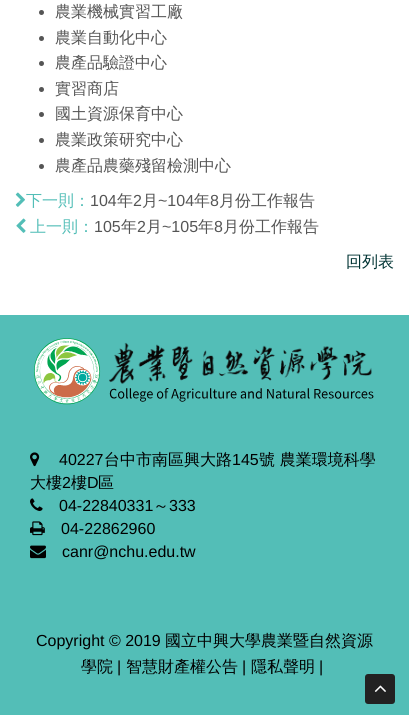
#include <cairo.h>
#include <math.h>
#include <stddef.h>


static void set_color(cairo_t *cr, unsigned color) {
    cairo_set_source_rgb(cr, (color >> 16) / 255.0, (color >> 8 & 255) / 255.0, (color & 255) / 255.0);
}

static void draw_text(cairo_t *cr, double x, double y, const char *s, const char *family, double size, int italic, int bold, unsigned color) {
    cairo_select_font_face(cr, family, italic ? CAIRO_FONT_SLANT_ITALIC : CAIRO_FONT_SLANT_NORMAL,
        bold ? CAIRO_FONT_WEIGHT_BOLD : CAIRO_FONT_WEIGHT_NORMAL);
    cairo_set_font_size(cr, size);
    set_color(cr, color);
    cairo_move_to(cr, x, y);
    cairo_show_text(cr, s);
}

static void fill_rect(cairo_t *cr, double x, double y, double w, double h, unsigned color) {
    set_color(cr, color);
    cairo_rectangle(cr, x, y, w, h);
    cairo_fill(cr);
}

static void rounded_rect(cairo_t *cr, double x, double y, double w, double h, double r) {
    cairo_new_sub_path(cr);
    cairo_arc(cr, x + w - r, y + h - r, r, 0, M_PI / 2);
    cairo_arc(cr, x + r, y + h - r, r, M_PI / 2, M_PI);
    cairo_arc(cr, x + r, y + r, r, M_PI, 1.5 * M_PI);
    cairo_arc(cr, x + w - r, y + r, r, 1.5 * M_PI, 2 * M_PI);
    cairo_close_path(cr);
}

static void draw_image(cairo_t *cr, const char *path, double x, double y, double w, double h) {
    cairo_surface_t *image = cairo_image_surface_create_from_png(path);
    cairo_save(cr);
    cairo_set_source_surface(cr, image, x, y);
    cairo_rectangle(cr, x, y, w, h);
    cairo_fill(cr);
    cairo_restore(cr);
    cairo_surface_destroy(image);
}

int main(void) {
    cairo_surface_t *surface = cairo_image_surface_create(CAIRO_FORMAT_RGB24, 409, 715);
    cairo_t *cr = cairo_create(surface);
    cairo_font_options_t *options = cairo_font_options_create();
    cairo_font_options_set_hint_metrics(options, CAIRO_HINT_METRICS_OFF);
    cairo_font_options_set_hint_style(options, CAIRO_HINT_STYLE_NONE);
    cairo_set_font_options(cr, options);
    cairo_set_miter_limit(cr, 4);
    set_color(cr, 0xFFFFFF);
    cairo_paint(cr);
    set_color(cr, 0x555555);
    cairo_arc(cr, 41.5, 12.5, 2.5, 0, 2 * M_PI);
    cairo_fill(cr);
    draw_text(cr, 55, 17, "農業機械實習工廠", "WenQuanYi Zen Hei Medium", 16, 0, 0, 0x555555);
    cairo_new_path(cr);
    cairo_arc(cr, 41.5, 38.5, 2.5, 0, 2 * M_PI);
    cairo_fill(cr);
    draw_text(cr, 55, 43, "農業自動化中心", "WenQuanYi Zen Hei Medium", 16, 0, 0, 0x555555);
    cairo_new_path(cr);
    cairo_arc(cr, 41.5, 63.5, 2.5, 0, 2 * M_PI);
    cairo_fill(cr);
    draw_text(cr, 55, 68, "農產品驗證中心", "WenQuanYi Zen Hei Medium", 16, 0, 0, 0x555555);
    cairo_new_path(cr);
    cairo_arc(cr, 41.5, 89.5, 2.5, 0, 2 * M_PI);
    cairo_fill(cr);
    draw_text(cr, 55, 94, "實習商店", "WenQuanYi Zen Hei Medium", 16, 0, 0, 0x555555);
    cairo_new_path(cr);
    cairo_arc(cr, 41.5, 114.5, 2.5, 0, 2 * M_PI);
    cairo_fill(cr);
    draw_text(cr, 55, 119, "國土資源保育中心", "WenQuanYi Zen Hei Medium", 16, 0, 0, 0x555555);
    cairo_new_path(cr);
    cairo_arc(cr, 41.5, 140.5, 2.5, 0, 2 * M_PI);
    cairo_fill(cr);
    draw_text(cr, 55, 145, "農業政策研究中心", "WenQuanYi Zen Hei Medium", 16, 0, 0, 0x555555);
    cairo_new_path(cr);
    cairo_arc(cr, 41.5, 166.5, 2.5, 0, 2 * M_PI);
    cairo_fill(cr);
    draw_text(cr, 55, 171, "農產品農藥殘留檢測中心", "WenQuanYi Zen Hei Medium", 16, 0, 0, 0x555555);
    draw_image(cr, "assets/img1.png", 15, 192, 10, 15);
    draw_text(cr, 26, 206, "下一則：", "WenQuanYi Zen Hei Medium", 16, 0, 0, 0x53BEB7);
    draw_text(cr, 90, 206, "104", "Liberation Sans", 16, 0, 0, 0x555555);
    draw_text(cr, 117, 206, "年", "WenQuanYi Zen Hei Medium", 16, 0, 0, 0x555555);
    draw_text(cr, 133, 206, "2", "Liberation Sans", 16, 0, 0, 0x555555);
    draw_text(cr, 142, 206, "月", "WenQuanYi Zen Hei Medium", 16, 0, 0, 0x555555);
    draw_text(cr, 158, 206, "~104", "Liberation Sans", 16, 0, 0, 0x555555);
    draw_text(cr, 194, 206, "年", "WenQuanYi Zen Hei Medium", 16, 0, 0, 0x555555);
    draw_text(cr, 210, 206, "8", "Liberation Sans", 16, 0, 0, 0x555555);
    draw_text(cr, 219, 206, "月份工作報告", "WenQuanYi Zen Hei Medium", 16, 0, 0, 0x555555);
    draw_image(cr, "assets/img2.png", 16, 218, 10, 15);
    draw_text(cr, 30, 232, "上一則：", "WenQuanYi Zen Hei Medium", 16, 0, 0, 0x53BEB7);
    draw_text(cr, 94, 232, "105", "Liberation Sans", 16, 0, 0, 0x555555);
    draw_text(cr, 121, 232, "年", "WenQuanYi Zen Hei Medium", 16, 0, 0, 0x555555);
    draw_text(cr, 137, 232, "2", "Liberation Sans", 16, 0, 0, 0x555555);
    draw_text(cr, 146, 232, "月", "WenQuanYi Zen Hei Medium", 16, 0, 0, 0x555555);
    draw_text(cr, 162, 232, "~105", "Liberation Sans", 16, 0, 0, 0x555555);
    draw_text(cr, 198, 232, "年", "WenQuanYi Zen Hei Medium", 16, 0, 0, 0x555555);
    draw_text(cr, 214, 232, "8", "Liberation Sans", 16, 0, 0, 0x555555);
    draw_text(cr, 223, 232, "月份工作報告", "WenQuanYi Zen Hei Medium", 16, 0, 0, 0x555555);
    draw_text(cr, 346, 267, "回列表", "WenQuanYi Zen Hei Medium", 16, 0, 0, 0x003333);
    fill_rect(cr, 0, 315, 409, 400, 0x53BEB7);
    draw_image(cr, "assets/img3.png", 34, 338, 340, 67);
    draw_image(cr, "assets/img4.png", 30, 452, 10, 15);
    draw_text(cr, 59, 465, "40227", "Liberation Sans", 16, 0, 0, 0x000000);
    draw_text(cr, 104, 465, "台中市南區興大路", "WenQuanYi Zen Hei Medium", 16, 0, 0, 0x000000);
    draw_text(cr, 232, 465, "145", "Liberation Sans", 16, 0, 0, 0x000000);
    draw_text(cr, 259, 465, "號 農業環境科學", "WenQuanYi Zen Hei Medium", 16, 0, 0, 0x000000);
    draw_text(cr, 30, 488, "大樓", "WenQuanYi Zen Hei Medium", 16, 0, 0, 0x000000);
    draw_text(cr, 62, 488, "2", "Liberation Sans", 16, 0, 0, 0x000000);
    draw_text(cr, 71, 488, "樓", "WenQuanYi Zen Hei Medium", 16, 0, 0, 0x000000);
    draw_text(cr, 87, 488, "D", "Liberation Sans", 16, 0, 0, 0x000000);
    draw_text(cr, 98, 488, "區", "WenQuanYi Zen Hei Medium", 16, 0, 0, 0x000000);
    draw_image(cr, "assets/img5.png", 30, 498, 13, 13);
    draw_text(cr, 59, 511, "04-22840331", "Liberation Sans", 16, 0, 0, 0x000000);
    draw_text(cr, 153, 511, "～", "WenQuanYi Zen Hei Medium", 16, 0, 0, 0x000000);
    draw_text(cr, 169, 511, "333", "Liberation Sans", 16, 0, 0, 0x000000);
    draw_image(cr, "assets/img6.png", 30, 521, 15, 15);
    draw_text(cr, 61, 534, "04-22862960", "Liberation Sans", 16, 0, 0, 0x000000);
    draw_image(cr, "assets/img7.png", 30, 545, 16, 14);
    draw_text(cr, 62, 557, "canr@nchu.edu.tw", "Liberation Sans", 16, 0, 0, 0x000000);
    draw_text(cr, 36, 646, "Copyright © 2019", "Liberation Sans", 16, 0, 0, 0x000000);
    draw_text(cr, 165, 646, "國立中興大學農業暨自然資源", "WenQuanYi Zen Hei Medium", 16, 0, 0, 0x000000);
    draw_text(cr, 81, 672, "學院", "WenQuanYi Zen Hei Medium", 16, 0, 0, 0x000000);
    draw_text(cr, 117, 672, "|", "Liberation Sans", 16, 0, 0, 0x000000);
    draw_text(cr, 126, 672, "智慧財產權公告", "WenQuanYi Zen Hei Medium", 16, 0, 0, 0x000000);
    draw_text(cr, 242, 672, "|", "Liberation Sans", 16, 0, 0, 0x000000);
    draw_text(cr, 251, 672, "隱私聲明", "WenQuanYi Zen Hei Medium", 16, 0, 0, 0x000000);
    draw_text(cr, 319, 672, "|", "Liberation Sans", 16, 0, 0, 0x000000);
    set_color(cr, 0x222222);
    rounded_rect(cr, 365, 674, 30, 30, 3);
    cairo_fill(cr);
    draw_image(cr, "assets/img8.png", 374, 685, 12, 7);
    cairo_surface_write_to_png(surface, "output.png");
    cairo_font_options_destroy(options);
    cairo_destroy(cr);
    cairo_surface_destroy(surface);
    return 0;
}
